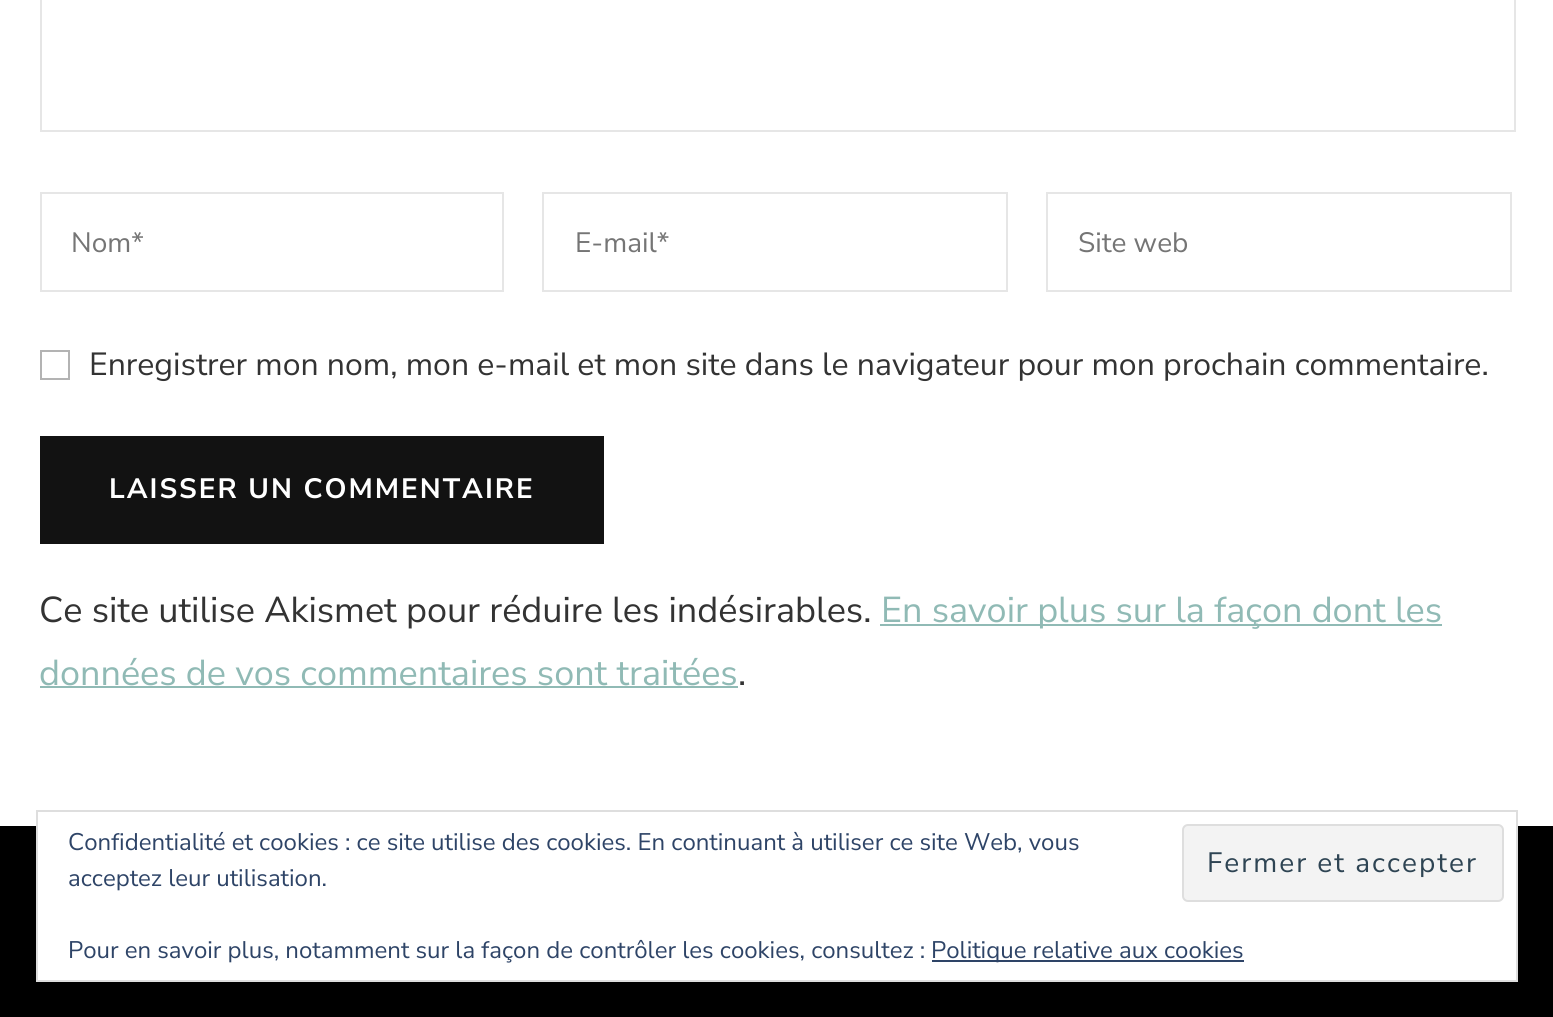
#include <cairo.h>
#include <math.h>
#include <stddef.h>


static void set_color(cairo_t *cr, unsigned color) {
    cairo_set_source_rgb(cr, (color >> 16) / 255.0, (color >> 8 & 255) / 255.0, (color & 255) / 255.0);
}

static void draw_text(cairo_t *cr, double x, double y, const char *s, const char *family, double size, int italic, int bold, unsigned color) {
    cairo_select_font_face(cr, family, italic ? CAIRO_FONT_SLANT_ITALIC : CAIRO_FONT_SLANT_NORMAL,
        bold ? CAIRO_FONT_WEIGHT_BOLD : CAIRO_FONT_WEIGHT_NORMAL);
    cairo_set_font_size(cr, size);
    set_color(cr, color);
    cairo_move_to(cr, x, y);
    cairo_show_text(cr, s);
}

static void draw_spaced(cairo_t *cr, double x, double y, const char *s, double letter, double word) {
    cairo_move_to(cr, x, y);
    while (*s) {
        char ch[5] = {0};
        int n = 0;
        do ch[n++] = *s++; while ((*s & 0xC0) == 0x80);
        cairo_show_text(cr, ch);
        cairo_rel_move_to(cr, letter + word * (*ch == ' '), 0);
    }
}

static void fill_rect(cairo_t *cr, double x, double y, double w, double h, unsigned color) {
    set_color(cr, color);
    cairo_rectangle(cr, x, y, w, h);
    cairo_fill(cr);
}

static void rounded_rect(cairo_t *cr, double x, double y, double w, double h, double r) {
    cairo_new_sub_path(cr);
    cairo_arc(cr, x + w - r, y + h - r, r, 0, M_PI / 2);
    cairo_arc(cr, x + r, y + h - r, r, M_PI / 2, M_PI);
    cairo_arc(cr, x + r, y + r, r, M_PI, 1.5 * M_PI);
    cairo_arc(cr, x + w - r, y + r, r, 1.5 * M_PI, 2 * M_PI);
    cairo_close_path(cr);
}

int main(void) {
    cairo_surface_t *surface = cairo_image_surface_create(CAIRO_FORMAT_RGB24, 1553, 1017);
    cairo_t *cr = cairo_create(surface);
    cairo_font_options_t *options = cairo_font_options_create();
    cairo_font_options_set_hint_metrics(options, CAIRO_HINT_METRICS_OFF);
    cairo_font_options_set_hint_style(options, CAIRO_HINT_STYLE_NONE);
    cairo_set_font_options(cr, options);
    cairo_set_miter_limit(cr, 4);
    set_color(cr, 0xFFFFFF);
    cairo_paint(cr);
    cairo_rectangle(cr, 41, -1, 1474, 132);
    set_color(cr, 0xE6E6E6);
    cairo_stroke(cr);
    cairo_rectangle(cr, 41, 193, 462, 98);
    cairo_stroke(cr);
    draw_text(cr, 71, 252, "Nom*", "Nunito Sans", 28, 0, 0, 0x757575);
    cairo_rectangle(cr, 543, 193, 464, 98);
    set_color(cr, 0xE6E6E6);
    cairo_stroke(cr);
    draw_text(cr, 575, 252, "E-mail*", "Nunito Sans", 28, 0, 0, 0x757575);
    cairo_rectangle(cr, 1047, 193, 464, 98);
    set_color(cr, 0xE6E6E6);
    cairo_stroke(cr);
    draw_text(cr, 1078, 252, "Site web", "Nunito Sans", 28, 0, 0, 0x757575);
    cairo_rectangle(cr, 41, 351, 28, 28);
    set_color(cr, 0xB3B3B3);
    cairo_stroke(cr);
    draw_text(cr, 89, 375, "Enregistrer mon nom, mon e-mail et mon site dans le navigateur pour mon prochain commentaire.", "Nunito Sans", 32, 0, 0, 0x333333);
    fill_rect(cr, 40, 436, 564, 108, 0x121212);
    cairo_select_font_face(cr, "Nunito Sans", CAIRO_FONT_SLANT_NORMAL, CAIRO_FONT_WEIGHT_BOLD);
    cairo_set_font_size(cr, 28);
    set_color(cr, 0xFFFFFF);
    draw_spaced(cr, 109, 498, "LAISSER UN COMMENTAIRE", 2, 0);
    draw_text(cr, 39, 622, "Ce site utilise Akismet pour réduire les indésirables.", "Nunito Sans", 36, 0, 0, 0x333333);
    fill_rect(cr, 880, 624, 562, 2, 0x90BAB5);
    draw_text(cr, 881, 622, "En savoir plus sur la façon dont les", "Nunito Sans", 36, 0, 0, 0x90BAB5);
    draw_text(cr, 39, 685, "données de vos commentaires sont traitées", "Nunito Sans", 36, 0, 0, 0x90BAB5);
    fill_rect(cr, 40, 686, 698, 2, 0x90BAB5);
    draw_text(cr, 738, 685, ".", "Nunito Sans", 36, 0, 0, 0x333333);
    fill_rect(cr, 0, 826, 1553, 191, 0x000000);
    fill_rect(cr, 38, 826, 1478, 154, 0xFFFFFF);
    cairo_rectangle(cr, 37, 811, 1480, 170);
    set_color(cr, 0xDEDEDE);
    cairo_stroke(cr);
    draw_text(cr, 68, 850, "Confidentialité et cookies : ce site utilise des cookies. En continuant à utiliser ce site Web, vous", "Nunito Sans", 24, 0, 0, 0x2E4467);
    draw_text(cr, 68, 886, "acceptez leur utilisation.", "Nunito Sans", 24, 0, 0, 0x2E4467);
    set_color(cr, 0xF3F3F3);
    rounded_rect(cr, 1183, 825, 320, 76, 5);
    cairo_fill_preserve(cr);
    set_color(cr, 0xDEDEDE);
    cairo_stroke(cr);
    cairo_set_font_size(cr, 28);
    set_color(cr, 0x2E4453);
    draw_spaced(cr, 1207, 872, "Fermer et accepter", 2, 0);
    draw_text(cr, 68, 958, "Pour en savoir plus, notamment sur la façon de contrôler les cookies, consultez :", "Nunito Sans", 24, 0, 0, 0x2E4467);
    fill_rect(cr, 932, 960, 312, 2, 0x2E4467);
    draw_text(cr, 931, 958, "Politique relative aux cookies", "Nunito Sans", 24, 0, 0, 0x2E4467);
    cairo_surface_write_to_png(surface, "output.png");
    cairo_font_options_destroy(options);
    cairo_destroy(cr);
    cairo_surface_destroy(surface);
    return 0;
}
